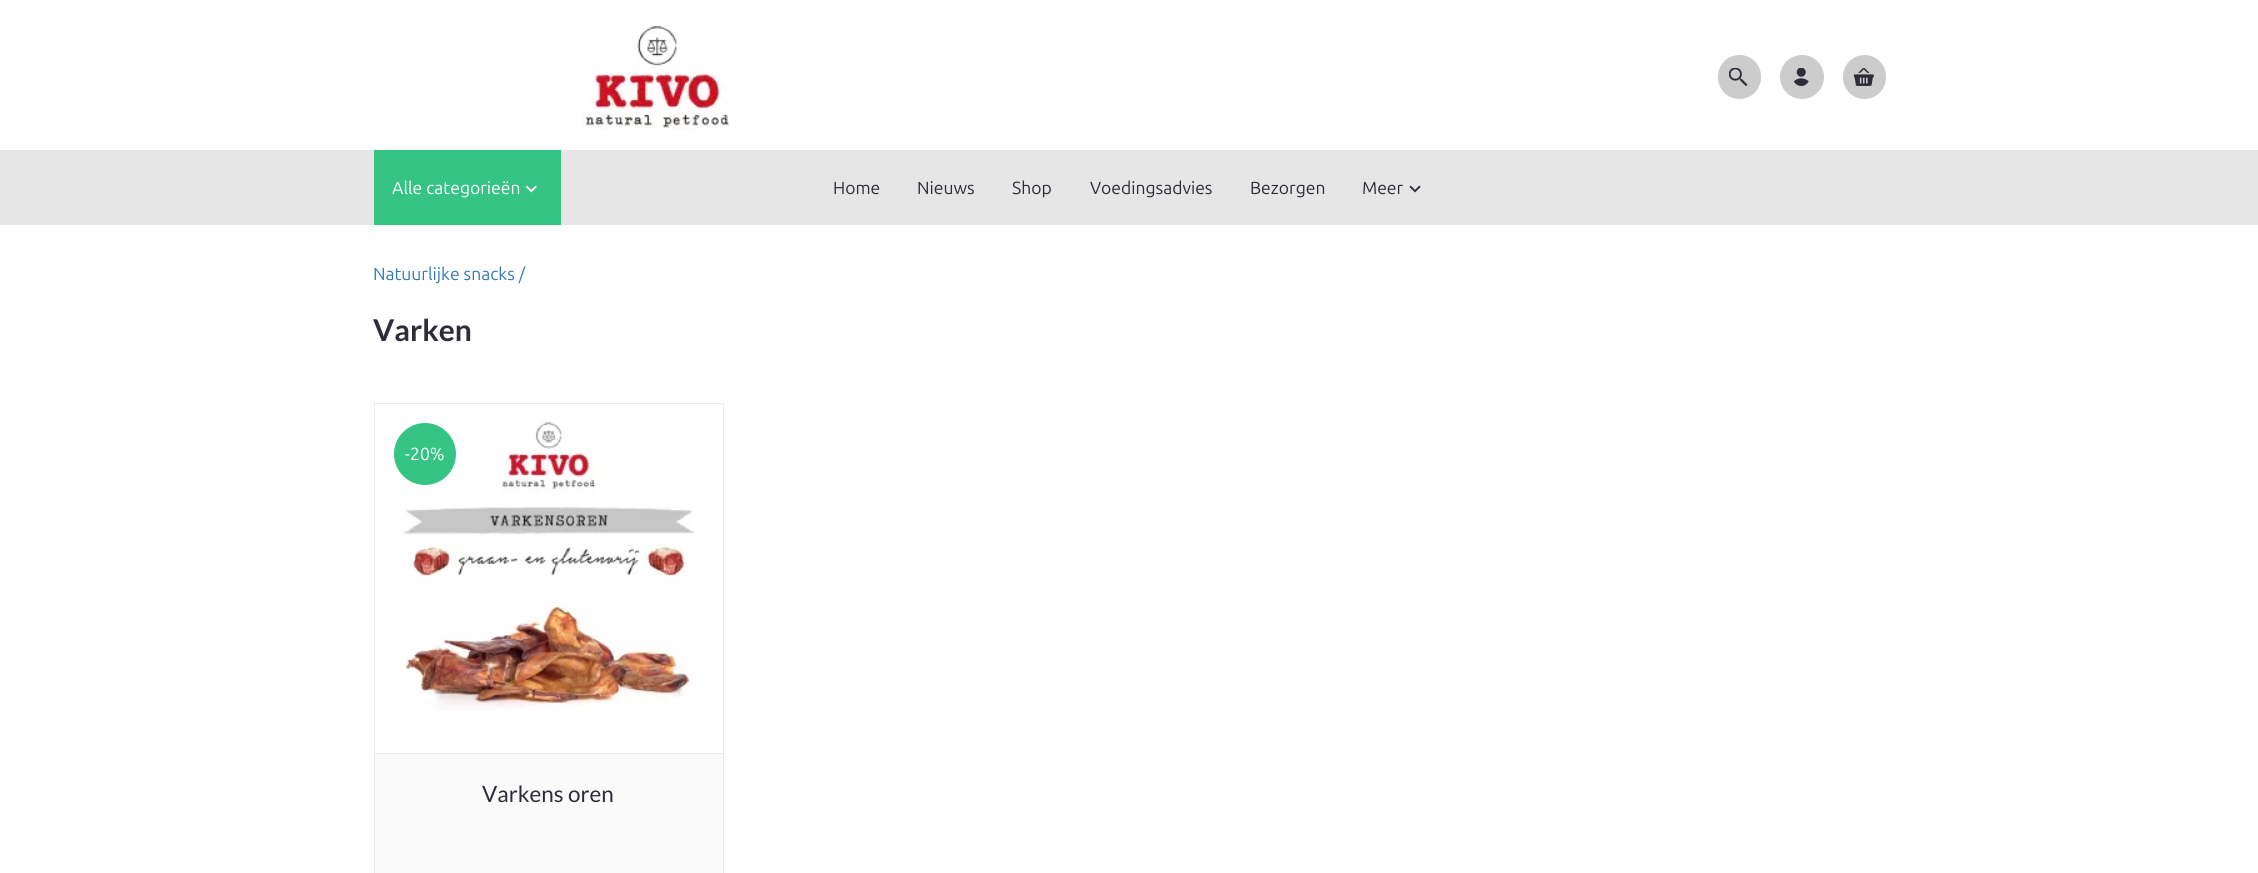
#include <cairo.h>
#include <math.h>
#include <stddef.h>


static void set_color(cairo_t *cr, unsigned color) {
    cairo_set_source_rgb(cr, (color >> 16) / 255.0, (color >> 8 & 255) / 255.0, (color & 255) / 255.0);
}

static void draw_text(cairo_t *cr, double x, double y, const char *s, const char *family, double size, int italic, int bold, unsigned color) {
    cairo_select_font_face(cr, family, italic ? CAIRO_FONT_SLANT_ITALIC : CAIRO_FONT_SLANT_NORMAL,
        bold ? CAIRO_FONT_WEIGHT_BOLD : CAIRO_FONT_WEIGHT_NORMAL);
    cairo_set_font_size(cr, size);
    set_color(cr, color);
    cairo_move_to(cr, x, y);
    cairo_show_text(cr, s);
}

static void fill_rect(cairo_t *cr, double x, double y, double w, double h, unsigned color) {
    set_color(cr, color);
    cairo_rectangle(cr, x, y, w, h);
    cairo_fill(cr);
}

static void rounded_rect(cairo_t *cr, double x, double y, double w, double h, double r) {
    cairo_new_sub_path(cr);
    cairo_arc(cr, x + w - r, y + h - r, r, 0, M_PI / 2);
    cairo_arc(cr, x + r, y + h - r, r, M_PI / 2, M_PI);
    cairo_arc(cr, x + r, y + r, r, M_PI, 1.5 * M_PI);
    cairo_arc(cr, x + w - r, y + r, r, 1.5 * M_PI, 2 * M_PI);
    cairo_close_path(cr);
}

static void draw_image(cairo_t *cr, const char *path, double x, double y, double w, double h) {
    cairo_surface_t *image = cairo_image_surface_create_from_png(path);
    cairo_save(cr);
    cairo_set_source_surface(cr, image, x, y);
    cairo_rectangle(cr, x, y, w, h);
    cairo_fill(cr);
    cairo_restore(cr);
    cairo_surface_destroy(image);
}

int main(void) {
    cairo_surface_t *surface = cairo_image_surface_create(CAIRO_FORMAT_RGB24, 2258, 873);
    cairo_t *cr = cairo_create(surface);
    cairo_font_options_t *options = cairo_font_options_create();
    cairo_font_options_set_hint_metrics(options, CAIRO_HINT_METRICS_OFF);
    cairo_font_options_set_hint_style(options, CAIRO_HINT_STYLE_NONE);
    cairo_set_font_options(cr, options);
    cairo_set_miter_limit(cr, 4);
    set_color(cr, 0xFFFFFF);
    cairo_paint(cr);
    draw_image(cr, "assets/img1.png", 582, 25, 149, 105);
    set_color(cr, 0xCCCCCC);
    rounded_rect(cr, 1718, 55, 43, 44, 21.5);
    cairo_fill(cr);
    draw_image(cr, "assets/img2.png", 1729, 68, 19, 18);
    cairo_arc(cr, 1802, 77, 22, 0, 2 * M_PI);
    cairo_fill(cr);
    draw_image(cr, "assets/img3.png", 1794, 68, 15, 18);
    rounded_rect(cr, 1843, 55, 43, 44, 21.5);
    cairo_fill(cr);
    draw_image(cr, "assets/img4.png", 1854, 68, 20, 18);
    fill_rect(cr, 0, 150, 2258, 75, 0xE6E6E6);
    fill_rect(cr, 374, 150, 187, 75, 0x35C484);
    draw_text(cr, 392, 194, "Alle categorieën", "Ubuntu", 17.5, 0, 0, 0xFFFFFF);
    draw_image(cr, "assets/img5.png", 525, 185, 12, 8);
    draw_text(cr, 833, 194, "Home", "Ubuntu", 17.5, 0, 0, 0x2E2C39);
    draw_text(cr, 917, 194, "Nieuws", "Ubuntu", 17.5, 0, 0, 0x2E2C39);
    draw_text(cr, 1012, 194, "Shop", "Ubuntu", 17.5, 0, 0, 0x2E2C39);
    draw_text(cr, 1090, 194, "Voedingsadvies", "Ubuntu", 17.5, 0, 0, 0x2E2C39);
    draw_text(cr, 1250, 194, "Bezorgen", "Ubuntu", 17.5, 0, 0, 0x2E2C39);
    draw_text(cr, 1362, 194, "Meer", "Ubuntu", 17.5, 0, 0, 0x2E2C39);
    draw_image(cr, "assets/img6.png", 1409, 185, 12, 8);
    draw_text(cr, 373, 280, "Natuurlijke snacks /", "Ubuntu", 17.5, 0, 0, 0x337AB7);
    draw_text(cr, 373, 341, "Varken", "Lato", 30, 0, 1, 0x2E2C39);
    cairo_rectangle(cr, 374.5, 403.5, 349, 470);
    set_color(cr, 0xEBEBEB);
    cairo_set_line_width(cr, 1);
    cairo_stroke(cr);
    fill_rect(cr, 375, 753, 348, 1, 0xEBEBEB);
    draw_image(cr, "assets/img7.png", 402, 420, 293, 290);
    set_color(cr, 0x35C484);
    cairo_arc(cr, 425, 454, 31, 0, 2 * M_PI);
    cairo_fill(cr);
    draw_text(cr, 405, 460, "-20%", "Ubuntu", 17.5, 0, 0, 0xFFFFFF);
    fill_rect(cr, 375, 754, 348, 119, 0xFAFAFA);
    draw_text(cr, 482, 802, "Varkens oren", "Lato", 22.5, 0, 0, 0x2E2C39);
    cairo_surface_write_to_png(surface, "output.png");
    cairo_font_options_destroy(options);
    cairo_destroy(cr);
    cairo_surface_destroy(surface);
    return 0;
}
